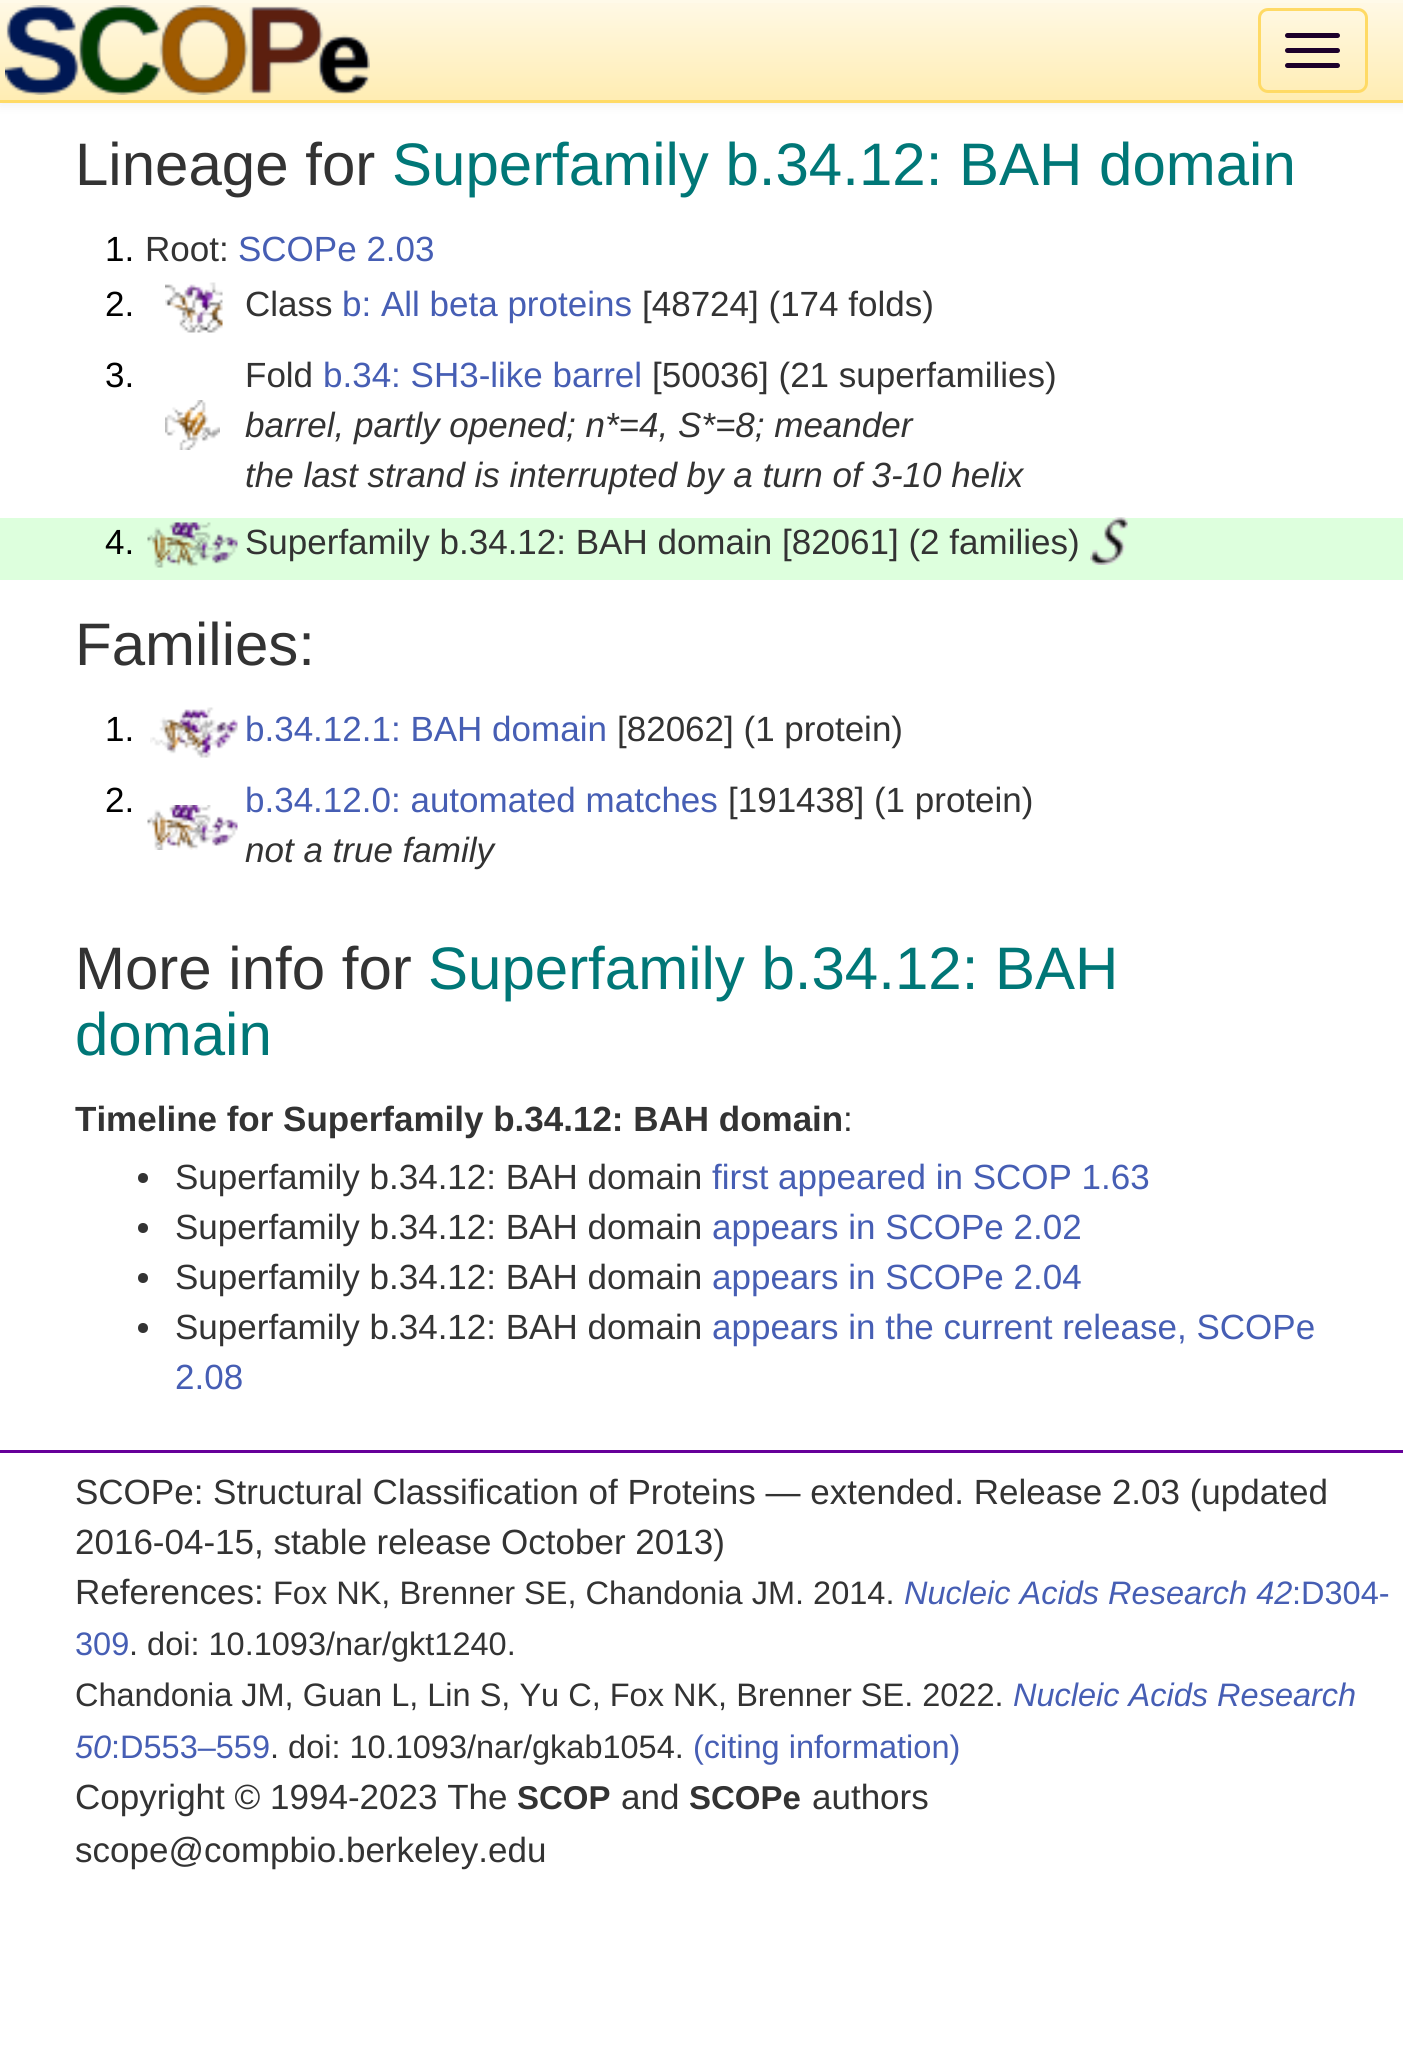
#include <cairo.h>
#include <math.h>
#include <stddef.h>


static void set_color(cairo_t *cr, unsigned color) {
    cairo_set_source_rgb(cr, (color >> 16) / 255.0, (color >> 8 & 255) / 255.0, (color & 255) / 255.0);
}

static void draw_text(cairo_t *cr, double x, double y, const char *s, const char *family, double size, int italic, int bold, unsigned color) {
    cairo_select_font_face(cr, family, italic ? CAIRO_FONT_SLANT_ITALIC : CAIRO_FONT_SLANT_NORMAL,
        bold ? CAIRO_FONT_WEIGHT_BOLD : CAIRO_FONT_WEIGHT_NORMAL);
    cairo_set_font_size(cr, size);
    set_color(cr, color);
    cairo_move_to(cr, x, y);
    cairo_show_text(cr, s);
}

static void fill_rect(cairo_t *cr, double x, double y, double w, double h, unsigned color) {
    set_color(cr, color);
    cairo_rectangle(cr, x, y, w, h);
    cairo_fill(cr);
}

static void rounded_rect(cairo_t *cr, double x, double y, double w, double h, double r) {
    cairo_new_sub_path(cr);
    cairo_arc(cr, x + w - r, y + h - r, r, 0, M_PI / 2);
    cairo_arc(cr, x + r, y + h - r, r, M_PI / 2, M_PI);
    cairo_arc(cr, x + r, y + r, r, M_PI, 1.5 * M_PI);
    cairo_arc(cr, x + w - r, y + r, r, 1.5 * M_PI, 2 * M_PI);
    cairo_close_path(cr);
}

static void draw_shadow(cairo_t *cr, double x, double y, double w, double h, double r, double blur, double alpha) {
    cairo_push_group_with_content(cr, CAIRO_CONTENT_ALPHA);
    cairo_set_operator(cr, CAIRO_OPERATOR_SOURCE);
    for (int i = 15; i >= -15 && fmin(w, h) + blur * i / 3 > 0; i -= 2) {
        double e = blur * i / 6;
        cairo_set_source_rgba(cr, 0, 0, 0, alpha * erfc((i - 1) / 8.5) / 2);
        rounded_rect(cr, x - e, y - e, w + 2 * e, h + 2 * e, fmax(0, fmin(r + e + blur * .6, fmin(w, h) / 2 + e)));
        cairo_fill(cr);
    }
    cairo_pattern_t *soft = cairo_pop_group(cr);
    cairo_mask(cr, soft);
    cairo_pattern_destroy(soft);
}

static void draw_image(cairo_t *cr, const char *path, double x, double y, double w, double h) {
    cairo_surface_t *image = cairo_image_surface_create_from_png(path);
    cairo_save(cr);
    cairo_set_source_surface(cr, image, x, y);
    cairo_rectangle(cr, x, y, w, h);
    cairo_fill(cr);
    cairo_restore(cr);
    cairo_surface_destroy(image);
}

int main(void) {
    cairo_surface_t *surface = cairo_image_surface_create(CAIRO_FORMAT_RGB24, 1403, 2049);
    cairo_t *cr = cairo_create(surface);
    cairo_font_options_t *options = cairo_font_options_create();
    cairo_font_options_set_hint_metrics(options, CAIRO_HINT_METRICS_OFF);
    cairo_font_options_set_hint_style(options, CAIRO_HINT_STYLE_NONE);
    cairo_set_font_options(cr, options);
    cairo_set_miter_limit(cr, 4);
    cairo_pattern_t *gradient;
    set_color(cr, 0xFFFFFF);
    cairo_paint(cr);
    set_color(cr, 0x000000);
    draw_shadow(cr, 0, 3, 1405, 102, 0, 6, 0.07);
    gradient = cairo_pattern_create_linear(703, 0, 703, 100);
    cairo_pattern_add_color_stop_rgba(gradient, 0, 1, 0.976, 0.902, 1);
    cairo_pattern_add_color_stop_rgba(gradient, 1, 1, 0.929, 0.702, 1);
    cairo_set_source(cr, gradient);
    cairo_pattern_destroy(gradient);
    cairo_rectangle(cr, 0, 3, 1403, 97);
    cairo_fill(cr);
    fill_rect(cr, 0, 0, 1403, 3, 0xFFFAE9);
    fill_rect(cr, 0, 100, 1403, 3, 0xFFDA65);
    draw_image(cr, "assets/img1.png", 5, 5, 365, 90);
    rounded_rect(cr, 1259.5, 9.5, 107, 82, 8.5);
    cairo_set_line_width(cr, 3);
    cairo_stroke(cr);
    set_color(cr, 0x1D002B);
    rounded_rect(cr, 1285, 33, 55, 5, 2.5);
    cairo_fill(cr);
    rounded_rect(cr, 1285, 48, 55, 5, 2.5);
    cairo_fill(cr);
    rounded_rect(cr, 1285, 63, 55, 5, 2.5);
    cairo_fill(cr);
    draw_text(cr, 75, 185, "Lineage for", "Liberation Sans", 60, 0, 0, 0x333333);
    draw_text(cr, 392, 185, "Superfamily b.34.12: BAH domain", "Liberation Sans", 60, 0, 0, 0x007777);
    draw_text(cr, 105, 261, "1.", "Liberation Sans", 35, 0, 0, 0x000000);
    draw_text(cr, 145, 261, "Root:", "Liberation Sans", 35, 0, 0, 0x333333);
    draw_text(cr, 238, 261, "SCOPe 2.03", "Liberation Sans", 35, 0, 0, 0x465EB4);
    draw_text(cr, 105, 316, "2.", "Liberation Sans", 35, 0, 0, 0x000000);
    draw_image(cr, "assets/img2.png", 165, 282, 58, 51);
    draw_text(cr, 245, 316, "Class", "Liberation Sans", 35, 0, 0, 0x333333);
    draw_text(cr, 342, 316, "b: All beta proteins", "Liberation Sans", 35, 0, 0, 0x465EB4);
    draw_text(cr, 642, 316, "[48724] (174 folds)", "Liberation Sans", 35, 0, 0, 0x333333);
    draw_text(cr, 105, 387, "3.", "Liberation Sans", 35, 0, 0, 0x000000);
    draw_image(cr, "assets/img3.png", 165, 400, 55, 50);
    draw_text(cr, 245, 387, "Fold", "Liberation Sans", 35, 0, 0, 0x333333);
    draw_text(cr, 323, 387, "b.34: SH3-like barrel", "Liberation Sans", 35, 0, 0, 0x465EB4);
    draw_text(cr, 652, 387, "[50036] (21 superfamilies)", "Liberation Sans", 35, 0, 0, 0x333333);
    draw_text(cr, 245, 437, "barrel, partly opened; n*=4, S*=8; meander", "Liberation Sans", 35, 1, 0, 0x333333);
    draw_text(cr, 245, 487, "the last strand is interrupted by a turn of 3-10 helix", "Liberation Sans", 35, 1, 0, 0x333333);
    fill_rect(cr, 0, 518, 1403, 62, 0xDDFFDD);
    draw_text(cr, 105, 554, "4.", "Liberation Sans", 35, 0, 0, 0x000000);
    draw_image(cr, "assets/img4.png", 147, 522, 91, 46);
    draw_text(cr, 245, 554, "Superfamily b.34.12: BAH domain [82061] (2 families)", "Liberation Sans", 35, 0, 0, 0x333333);
    draw_image(cr, "assets/img5.png", 1090, 517, 38, 48);
    draw_text(cr, 75, 665, "Families:", "Liberation Sans", 60, 0, 0, 0x333333);
    draw_text(cr, 105, 741, "1.", "Liberation Sans", 35, 0, 0, 0x000000);
    draw_image(cr, "assets/img6.png", 150, 707, 88, 51);
    draw_text(cr, 245, 741, "b.34.12.1: BAH domain", "Liberation Sans", 35, 0, 0, 0x465EB4);
    draw_text(cr, 617, 741, "[82062] (1 protein)", "Liberation Sans", 35, 0, 0, 0x333333);
    draw_text(cr, 105, 812, "2.", "Liberation Sans", 35, 0, 0, 0x000000);
    draw_image(cr, "assets/img7.png", 147, 805, 91, 45);
    draw_text(cr, 245, 812, "b.34.12.0: automated matches", "Liberation Sans", 35, 0, 0, 0x465EB4);
    draw_text(cr, 728, 812, "[191438] (1 protein)", "Liberation Sans", 35, 0, 0, 0x333333);
    draw_text(cr, 245, 862, "not a true family", "Liberation Sans", 35, 1, 0, 0x333333);
    draw_text(cr, 75, 989, "More info for", "Liberation Sans", 60, 0, 0, 0x333333);
    draw_text(cr, 428, 989, "Superfamily b.34.12: BAH", "Liberation Sans", 60, 0, 0, 0x007777);
    draw_text(cr, 75, 1055, "domain", "Liberation Sans", 60, 0, 0, 0x007777);
    draw_text(cr, 75, 1131, "Timeline for Superfamily b.34.12: BAH domain", "Liberation Sans", 35, 0, 1, 0x333333);
    draw_text(cr, 843, 1131, ":", "Liberation Sans", 35, 0, 0, 0x333333);
    cairo_new_path(cr);
    cairo_arc(cr, 143, 1178, 5, 0, 2 * M_PI);
    cairo_fill(cr);
    draw_text(cr, 175, 1189, "Superfamily b.34.12: BAH domain", "Liberation Sans", 35, 0, 0, 0x333333);
    draw_text(cr, 712, 1189, "first appeared in SCOP 1.63", "Liberation Sans", 35, 0, 0, 0x465EB4);
    set_color(cr, 0x333333);
    cairo_new_path(cr);
    cairo_arc(cr, 143, 1228, 5, 0, 2 * M_PI);
    cairo_fill(cr);
    draw_text(cr, 175, 1239, "Superfamily b.34.12: BAH domain", "Liberation Sans", 35, 0, 0, 0x333333);
    draw_text(cr, 712, 1239, "appears in SCOPe 2.02", "Liberation Sans", 35, 0, 0, 0x465EB4);
    set_color(cr, 0x333333);
    cairo_new_path(cr);
    cairo_arc(cr, 143, 1278, 5, 0, 2 * M_PI);
    cairo_fill(cr);
    draw_text(cr, 175, 1289, "Superfamily b.34.12: BAH domain", "Liberation Sans", 35, 0, 0, 0x333333);
    draw_text(cr, 712, 1289, "appears in SCOPe 2.04", "Liberation Sans", 35, 0, 0, 0x465EB4);
    set_color(cr, 0x333333);
    cairo_new_path(cr);
    cairo_arc(cr, 143, 1328, 5, 0, 2 * M_PI);
    cairo_fill(cr);
    draw_text(cr, 175, 1339, "Superfamily b.34.12: BAH domain", "Liberation Sans", 35, 0, 0, 0x333333);
    draw_text(cr, 712, 1339, "appears in the current release, SCOPe", "Liberation Sans", 35, 0, 0, 0x465EB4);
    draw_text(cr, 175, 1389, "2.08", "Liberation Sans", 35, 0, 0, 0x465EB4);
    fill_rect(cr, 0, 1450, 1403, 3, 0x660099);
    draw_text(cr, 75, 1504, "SCOPe: Structural Classification of Proteins — extended. Release 2.03 (updated", "Liberation Sans", 35, 0, 0, 0x333333);
    draw_text(cr, 75, 1554, "2016-04-15, stable release October 2013)", "Liberation Sans", 35, 0, 0, 0x333333);
    draw_text(cr, 75, 1604, "References:", "Liberation Sans", 35, 0, 0, 0x333333);
    draw_text(cr, 273, 1604, "Fox NK, Brenner SE, Chandonia JM. 2014.", "Liberation Sans", 32.5, 0, 0, 0x333333);
    draw_text(cr, 904, 1604, "Nucleic Acids Research 42", "Liberation Sans", 32.5, 1, 0, 0x465EB4);
    draw_text(cr, 1292, 1604, ":D304-", "Liberation Sans", 32.5, 0, 0, 0x465EB4);
    draw_text(cr, 75, 1655, "309", "Liberation Sans", 32.5, 0, 0, 0x465EB4);
    draw_text(cr, 129, 1655, ". doi: 10.1093/nar/gkt1240.", "Liberation Sans", 32.5, 0, 0, 0x333333);
    draw_text(cr, 75, 1706, "Chandonia JM, Guan L, Lin S, Yu C, Fox NK, Brenner SE. 2022.", "Liberation Sans", 32.5, 0, 0, 0x333333);
    draw_text(cr, 1013, 1706, "Nucleic Acids Research", "Liberation Sans", 32.5, 1, 0, 0x465EB4);
    draw_text(cr, 75, 1758, "50", "Liberation Sans", 32.5, 1, 0, 0x465EB4);
    draw_text(cr, 111, 1758, ":D553–559", "Liberation Sans", 32.5, 0, 0, 0x465EB4);
    draw_text(cr, 270, 1758, ". doi: 10.1093/nar/gkab1054.", "Liberation Sans", 32.5, 0, 0, 0x333333);
    draw_text(cr, 693, 1758, "(citing information)", "Liberation Sans", 32.5, 0, 0, 0x465EB4);
    draw_text(cr, 75, 1809, "Copyright © 1994-2023 The", "Liberation Sans", 35, 0, 0, 0x333333);
    draw_text(cr, 517, 1809, "SCOP", "Liberation Sans", 33, 0, 1, 0x333333);
    draw_text(cr, 621, 1809, "and", "Liberation Sans", 35, 0, 0, 0x333333);
    draw_text(cr, 689, 1809, "SCOPe", "Liberation Sans", 33, 0, 1, 0x333333);
    draw_text(cr, 812, 1809, "authors", "Liberation Sans", 35, 0, 0, 0x333333);
    draw_text(cr, 75, 1862, "scope@compbio.berkeley.edu", "Liberation Sans", 35, 0, 0, 0x333333);
    cairo_surface_write_to_png(surface, "output.png");
    cairo_font_options_destroy(options);
    cairo_destroy(cr);
    cairo_surface_destroy(surface);
    return 0;
}
